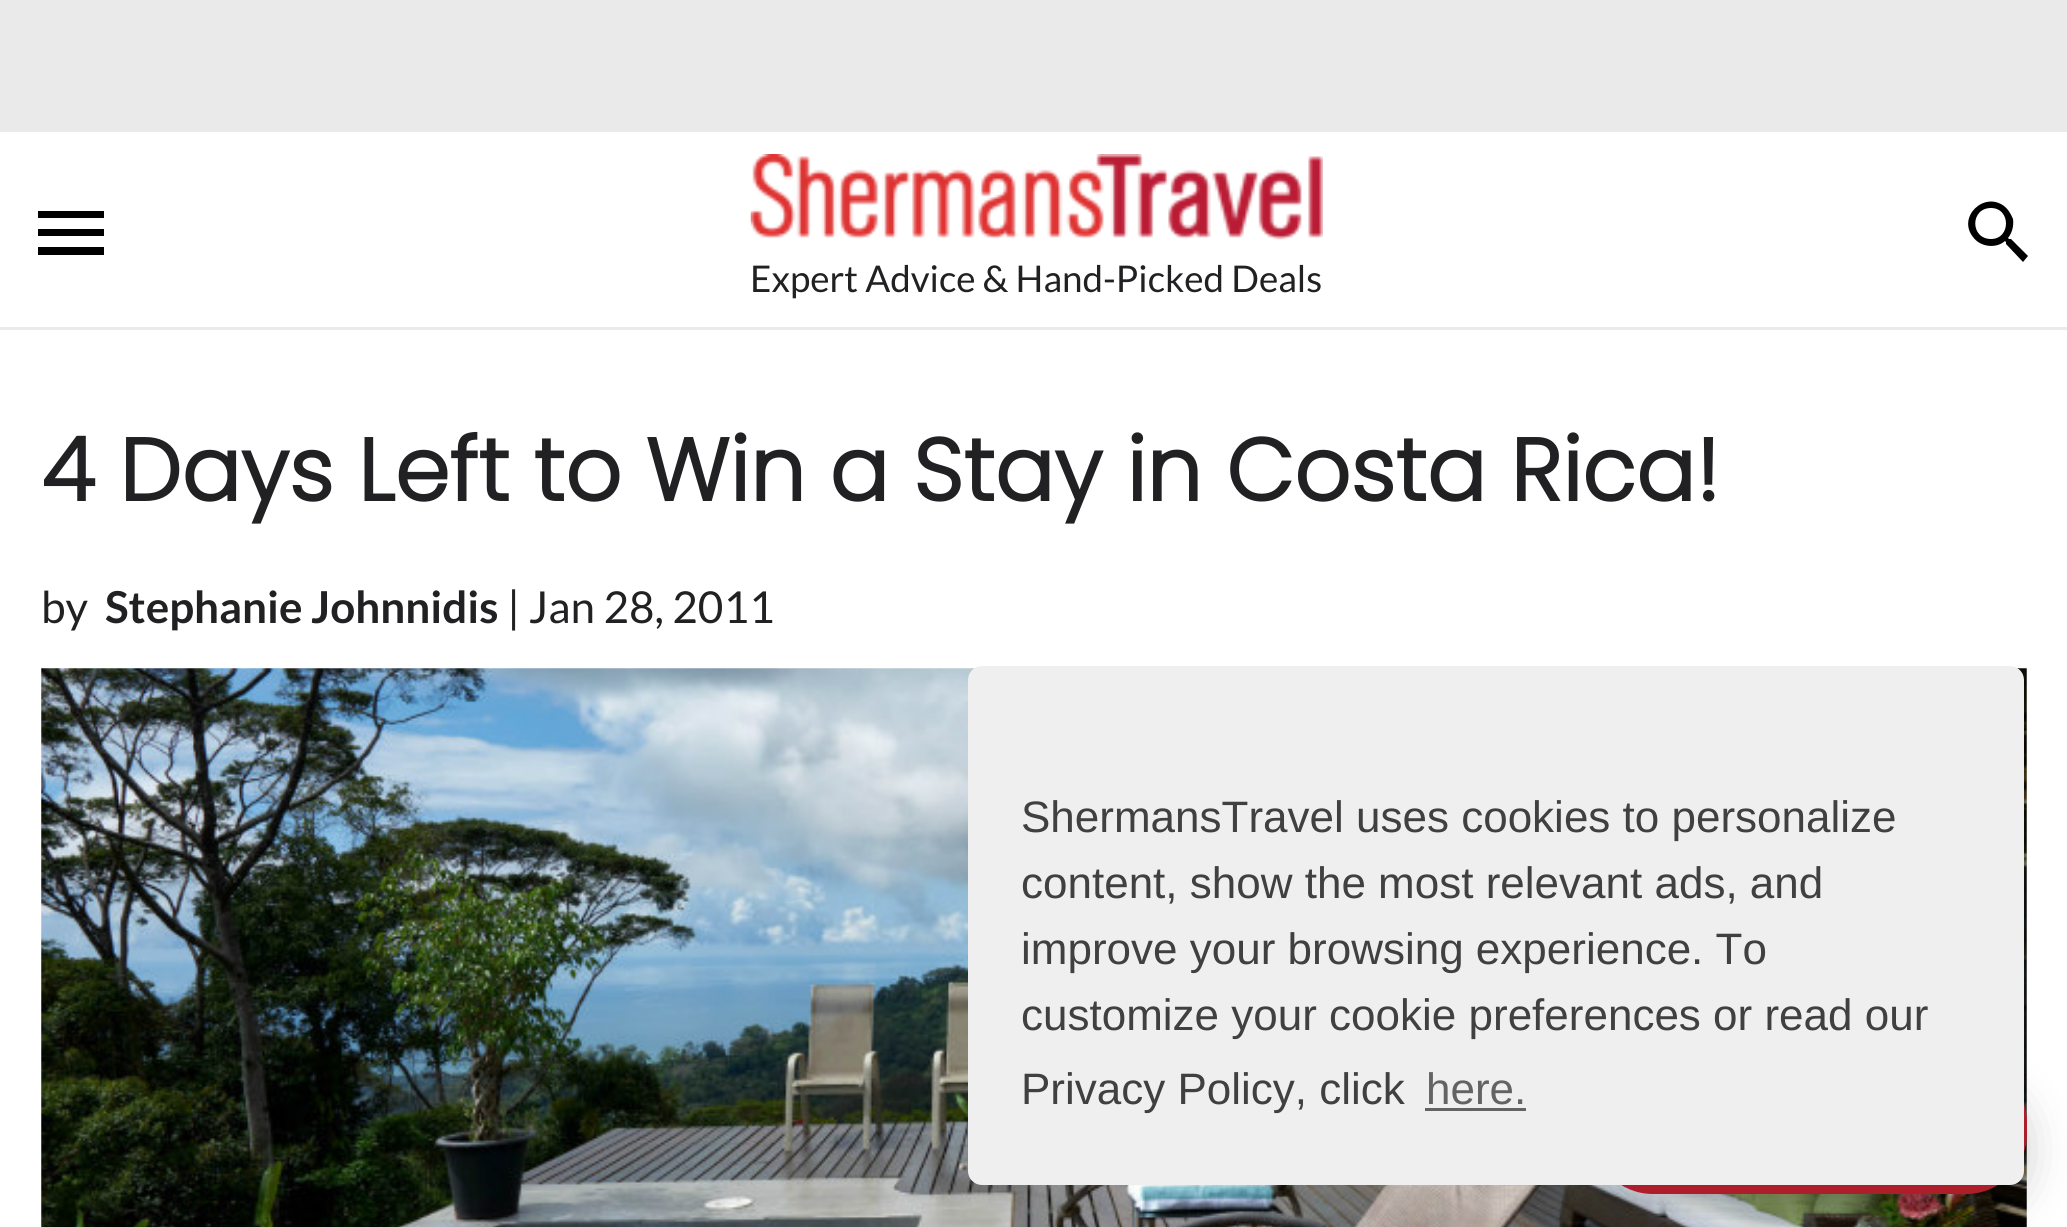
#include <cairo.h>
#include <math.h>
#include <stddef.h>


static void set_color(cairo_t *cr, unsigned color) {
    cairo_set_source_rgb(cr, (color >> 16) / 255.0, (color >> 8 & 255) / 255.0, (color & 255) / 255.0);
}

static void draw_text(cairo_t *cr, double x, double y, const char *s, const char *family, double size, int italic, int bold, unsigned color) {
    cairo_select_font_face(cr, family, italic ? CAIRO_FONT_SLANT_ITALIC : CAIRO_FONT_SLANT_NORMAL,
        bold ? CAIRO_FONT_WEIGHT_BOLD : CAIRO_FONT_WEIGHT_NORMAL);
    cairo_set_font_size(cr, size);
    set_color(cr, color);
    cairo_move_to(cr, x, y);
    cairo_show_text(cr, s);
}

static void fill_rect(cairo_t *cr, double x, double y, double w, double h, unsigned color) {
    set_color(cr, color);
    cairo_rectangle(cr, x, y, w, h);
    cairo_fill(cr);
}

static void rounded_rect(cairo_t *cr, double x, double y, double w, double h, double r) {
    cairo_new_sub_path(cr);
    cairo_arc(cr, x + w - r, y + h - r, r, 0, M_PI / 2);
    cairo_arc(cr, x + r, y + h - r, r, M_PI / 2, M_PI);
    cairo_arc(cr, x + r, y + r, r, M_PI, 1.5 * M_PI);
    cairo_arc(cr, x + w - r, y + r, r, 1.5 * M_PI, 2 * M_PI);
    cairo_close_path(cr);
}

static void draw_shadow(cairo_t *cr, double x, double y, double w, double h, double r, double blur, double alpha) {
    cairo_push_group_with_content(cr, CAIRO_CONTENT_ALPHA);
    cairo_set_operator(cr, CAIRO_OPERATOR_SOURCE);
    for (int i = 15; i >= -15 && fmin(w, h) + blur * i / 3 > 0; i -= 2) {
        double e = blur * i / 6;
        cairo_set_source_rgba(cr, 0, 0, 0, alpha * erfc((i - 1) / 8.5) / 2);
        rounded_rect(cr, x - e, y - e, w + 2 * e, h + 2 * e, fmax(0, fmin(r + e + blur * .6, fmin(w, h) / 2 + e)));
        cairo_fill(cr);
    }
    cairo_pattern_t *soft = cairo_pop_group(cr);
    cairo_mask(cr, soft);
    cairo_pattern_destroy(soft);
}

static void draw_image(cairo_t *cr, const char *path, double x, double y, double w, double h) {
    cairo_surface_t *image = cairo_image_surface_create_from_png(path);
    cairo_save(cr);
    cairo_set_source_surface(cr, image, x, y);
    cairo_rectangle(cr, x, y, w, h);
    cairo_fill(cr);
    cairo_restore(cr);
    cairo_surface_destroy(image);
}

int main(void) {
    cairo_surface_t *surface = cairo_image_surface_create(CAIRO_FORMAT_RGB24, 2067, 1227);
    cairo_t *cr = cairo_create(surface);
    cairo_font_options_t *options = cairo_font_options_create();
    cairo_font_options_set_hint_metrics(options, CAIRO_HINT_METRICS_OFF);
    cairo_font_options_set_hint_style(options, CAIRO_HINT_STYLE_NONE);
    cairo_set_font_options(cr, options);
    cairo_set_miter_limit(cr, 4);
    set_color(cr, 0xFFFFFF);
    cairo_paint(cr);
    fill_rect(cr, 0, 0, 2067, 132, 0xEAEAEA);
    fill_rect(cr, 0, 327, 2067, 3, 0xEAEAEA);
    set_color(cr, 0x000000);
    cairo_new_path(cr);
    cairo_move_to(cr, 38, 211);
    cairo_line_to(cr, 104, 211);
    cairo_line_to(cr, 104, 218);
    cairo_line_to(cr, 38, 218);
    cairo_close_path(cr);
    cairo_move_to(cr, 38, 236);
    cairo_line_to(cr, 38, 229);
    cairo_line_to(cr, 104, 229);
    cairo_line_to(cr, 104, 236);
    cairo_close_path(cr);
    cairo_move_to(cr, 38, 255);
    cairo_line_to(cr, 38, 247);
    cairo_line_to(cr, 104, 247);
    cairo_line_to(cr, 104, 255);
    cairo_close_path(cr);
    cairo_fill(cr);
    cairo_new_path(cr);
    cairo_move_to(cr, 1991, 239);
    cairo_curve_to(cr, 2011, 239, 2011, 208, 1991, 208);
    cairo_curve_to(cr, 1970, 208, 1970, 239, 1991, 239);
    cairo_close_path(cr);
    cairo_move_to(cr, 2011, 239);
    cairo_line_to(cr, 2028, 256);
    cairo_line_to(cr, 2023, 262);
    cairo_line_to(cr, 2006, 244);
    cairo_line_to(cr, 2006, 242);
    cairo_line_to(cr, 2005, 241);
    cairo_curve_to(cr, 1996, 249, 1980, 247, 1973, 237);
    cairo_curve_to(cr, 1957, 217, 1984, 191, 2004, 206);
    cairo_curve_to(cr, 2008, 209, 2011, 214, 2013, 219);
    cairo_curve_to(cr, 2014, 226, 2012, 233, 2008, 238);
    cairo_line_to(cr, 2009, 239);
    cairo_close_path(cr);
    cairo_fill(cr);
    draw_image(cr, "assets/img1.png", 750, 154, 573, 86);
    draw_text(cr, 750, 292, "Expert Advice & Hand-Picked Deals", "Lato", 36.8, 0, 0, 0x212123);
    draw_text(cr, 41, 501, "4 Days Left to Win a Stay in Costa Rica!", "Poppins", 88, 0, 1, 0x212123);
    draw_text(cr, 41, 623, "by", "Lato", 44, 0, 0, 0x212123);
    draw_text(cr, 105, 623, "Stephanie Johnnidis", "Lato", 44, 0, 1, 0x212123);
    draw_text(cr, 507, 623, "| Jan 28, 2011", "Lato", 44, 0, 0, 0x212123);
    draw_image(cr, "assets/img2.png", 41, 668, 1986, 559);
    set_color(cr, 0x000000);
    draw_shadow(cr, 1592, 1084, 435, 132, 61, 22, 0.2);
    set_color(cr, 0xAD1E2A);
    rounded_rect(cr, 1592, 1062, 435, 132, 61);
    cairo_fill(cr);
    set_color(cr, 0xEFEFEF);
    rounded_rect(cr, 968, 666, 1056, 519, 14);
    cairo_fill(cr);
    draw_text(cr, 1021, 832, "ShermansTravel uses cookies to personalize", "Liberation Sans", 44, 0, 0, 0x404040);
    draw_text(cr, 1021, 898, "content, show the most relevant ads, and", "Liberation Sans", 44, 0, 0, 0x404040);
    draw_text(cr, 1021, 964, "improve your browsing experience. To", "Liberation Sans", 44, 0, 0, 0x404040);
    draw_text(cr, 1021, 1030, "customize your cookie preferences or read our", "Liberation Sans", 44, 0, 0, 0x404040);
    draw_text(cr, 1021, 1104, "Privacy Policy, click", "Liberation Sans", 44, 0, 0, 0x404040);
    draw_text(cr, 1426, 1104, "here.", "Liberation Sans", 44, 0, 0, 0x636363);
    fill_rect(cr, 1425, 1108, 101, 3, 0x636363);
    cairo_surface_write_to_png(surface, "output.png");
    cairo_font_options_destroy(options);
    cairo_destroy(cr);
    cairo_surface_destroy(surface);
    return 0;
}
